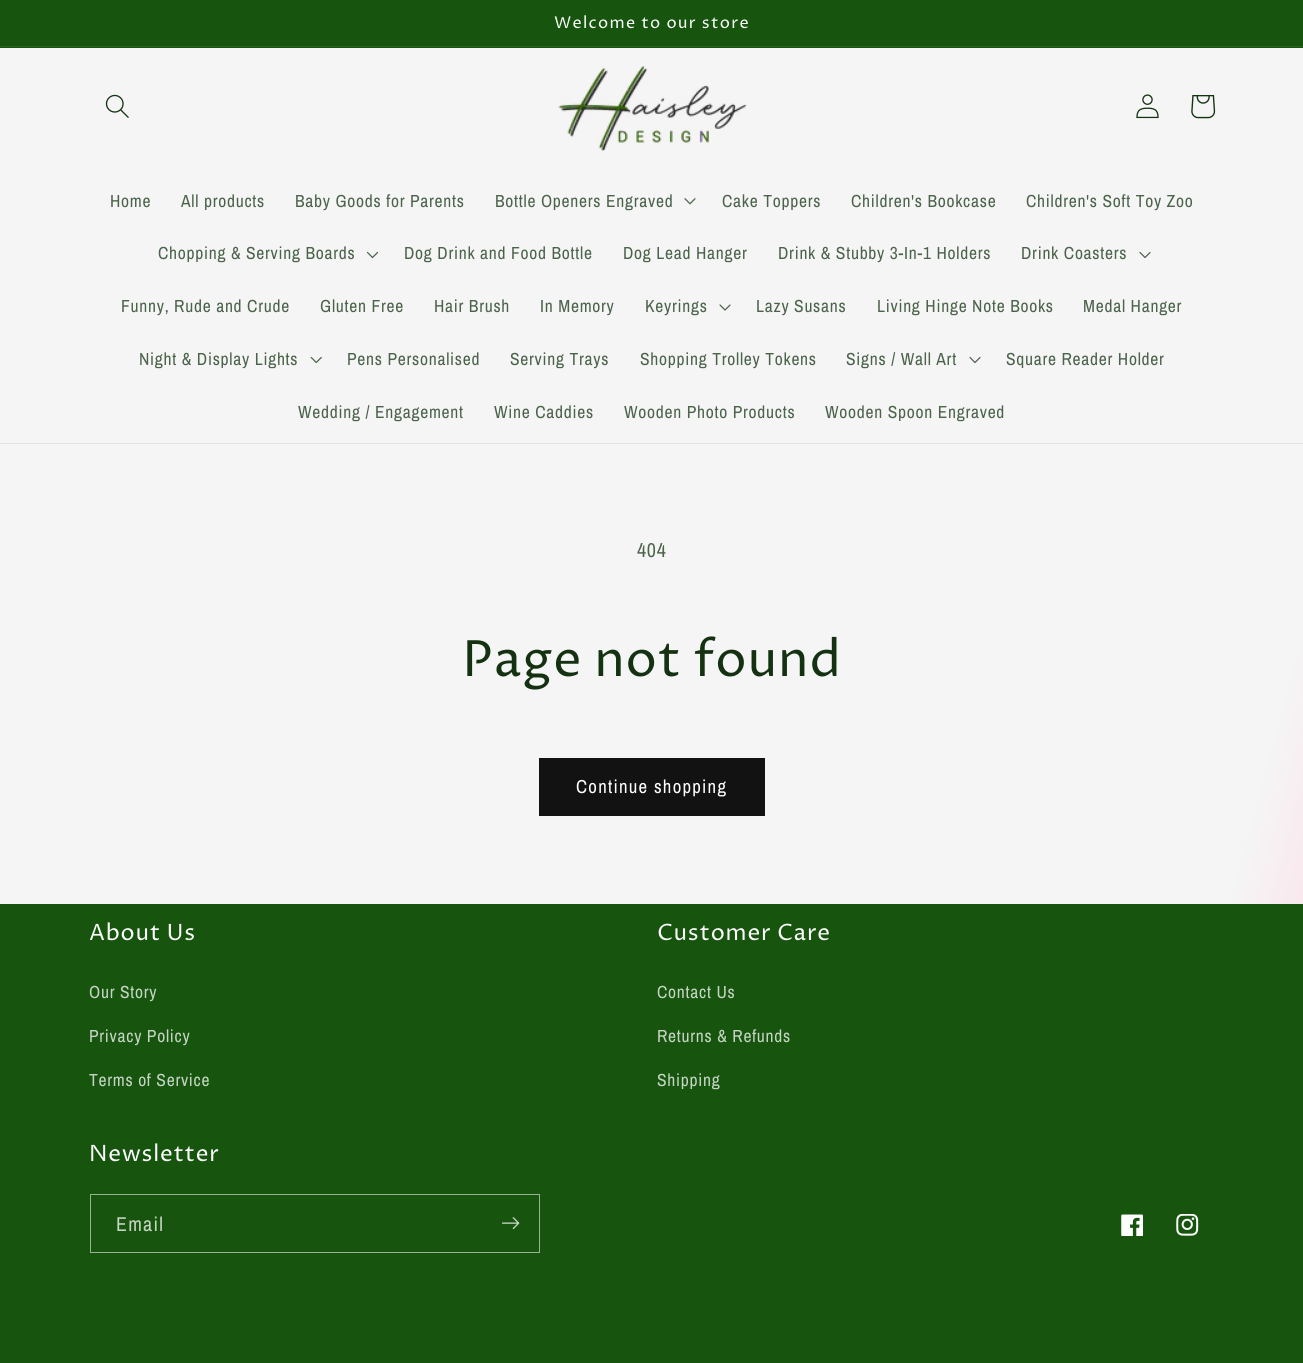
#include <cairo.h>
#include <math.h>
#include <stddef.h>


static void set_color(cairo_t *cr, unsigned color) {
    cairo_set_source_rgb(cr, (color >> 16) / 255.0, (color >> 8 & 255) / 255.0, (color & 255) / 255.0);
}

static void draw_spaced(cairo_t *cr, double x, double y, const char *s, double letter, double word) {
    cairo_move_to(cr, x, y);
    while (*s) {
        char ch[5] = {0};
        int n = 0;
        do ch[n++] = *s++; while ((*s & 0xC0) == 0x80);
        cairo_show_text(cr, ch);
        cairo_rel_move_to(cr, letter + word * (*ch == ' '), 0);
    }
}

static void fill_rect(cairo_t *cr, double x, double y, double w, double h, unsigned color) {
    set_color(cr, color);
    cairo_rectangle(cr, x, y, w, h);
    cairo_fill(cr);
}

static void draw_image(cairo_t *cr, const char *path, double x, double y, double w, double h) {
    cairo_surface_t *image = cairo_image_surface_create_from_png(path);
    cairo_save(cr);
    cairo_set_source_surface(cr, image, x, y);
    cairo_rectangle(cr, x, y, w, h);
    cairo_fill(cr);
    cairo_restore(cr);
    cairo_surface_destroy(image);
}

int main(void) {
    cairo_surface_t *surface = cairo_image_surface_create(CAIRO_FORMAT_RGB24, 1303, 1363);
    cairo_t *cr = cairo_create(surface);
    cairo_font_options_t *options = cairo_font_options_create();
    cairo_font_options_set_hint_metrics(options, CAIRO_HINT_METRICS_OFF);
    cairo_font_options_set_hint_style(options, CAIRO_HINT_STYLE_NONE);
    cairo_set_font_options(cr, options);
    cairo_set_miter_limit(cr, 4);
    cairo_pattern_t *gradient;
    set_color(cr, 0xFFFFFF);
    cairo_paint(cr);
    gradient = cairo_pattern_create_linear(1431, 891, -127, 473);
    cairo_pattern_add_color_stop_rgba(gradient, 0, 1, 0.827, 0.886, 1);
    cairo_pattern_add_color_stop_rgba(gradient, 0.12, 0.961, 0.961, 0.961, 1);
    cairo_set_source(cr, gradient);
    cairo_pattern_destroy(gradient);
    cairo_rectangle(cr, 0, 48, 1303, 856);
    cairo_fill(cr);
    fill_rect(cr, 0, 0, 1303, 48, 0x17550F);
    fill_rect(cr, 0, 46, 1303, 1, 0x2A6322);
    cairo_select_font_face(cr, "Proza Libre", CAIRO_FONT_SLANT_NORMAL, CAIRO_FONT_WEIGHT_NORMAL);
    cairo_set_font_size(cr, 16.25);
    set_color(cr, 0xFFFFFF);
    draw_spaced(cr, 554, 28, "Welcome to our store", 1.25, 0);
    fill_rect(cr, 0, 443, 1303, 1, 0xE3E5E3);
    draw_image(cr, "assets/img1.png", 105, 94, 24, 24);
    draw_image(cr, "assets/img2.png", 558, 66, 189, 86);
    draw_image(cr, "assets/img3.png", 1136, 94, 23, 25);
    draw_image(cr, "assets/img4.png", 1191, 95, 25, 24);
    cairo_select_font_face(cr, "Archivo Narrow", CAIRO_FONT_SLANT_NORMAL, CAIRO_FONT_WEIGHT_NORMAL);
    cairo_set_font_size(cr, 17.5);
    set_color(cr, 0x4C634B);
    draw_spaced(cr, 110, 207, "Home", 0.75, 0);
    draw_spaced(cr, 181, 207, "All products", 0.75, 0);
    draw_spaced(cr, 295, 207, "Baby Goods for Parents", 0.75, 0);
    draw_spaced(cr, 495, 207, "Bottle Openers Engraved", 0.75, 0);
    draw_image(cr, "assets/img5.png", 684, 198, 12, 7);
    draw_spaced(cr, 722, 207, "Cake Toppers", 0.75, 0);
    draw_spaced(cr, 851, 207, "Children's Bookcase", 0.75, 0);
    draw_spaced(cr, 1026, 207, "Children's Soft Toy Zoo", 0.75, 0);
    draw_spaced(cr, 158, 259, "Chopping & Serving Boards", 0.75, 0);
    draw_image(cr, "assets/img6.png", 366, 251, 13, 8);
    draw_spaced(cr, 404, 259, "Dog Drink and Food Bottle", 0.75, 0);
    draw_spaced(cr, 623, 259, "Dog Lead Hanger", 0.75, 0);
    draw_spaced(cr, 778, 259, "Drink & Stubby 3-In-1 Holders", 0.75, 0);
    draw_spaced(cr, 1021, 259, "Drink Coasters", 0.75, 0);
    draw_image(cr, "assets/img7.png", 1139, 252, 12, 6);
    draw_spaced(cr, 121, 312, "Funny, Rude and Crude", 0.75, 0);
    draw_spaced(cr, 320, 312, "Gluten Free", 0.75, 0);
    draw_spaced(cr, 434, 312, "Hair Brush", 0.75, 0);
    draw_spaced(cr, 540, 312, "In Memory", 0.75, 0);
    draw_spaced(cr, 645, 312, "Keyrings", 0.75, 0);
    draw_image(cr, "assets/img8.png", 719, 304, 12, 7);
    draw_spaced(cr, 756, 312, "Lazy Susans", 0.75, 0);
    draw_spaced(cr, 877, 312, "Living Hinge Note Books", 0.75, 0);
    draw_spaced(cr, 1083, 312, "Medal Hanger", 0.75, 0);
    draw_spaced(cr, 139, 365, "Night & Display Lights", 0.75, 0);
    draw_image(cr, "assets/img9.png", 310, 356, 12, 8);
    draw_spaced(cr, 347, 365, "Pens Personalised", 0.75, 0);
    draw_spaced(cr, 510, 365, "Serving Trays", 0.75, 0);
    draw_spaced(cr, 640, 365, "Shopping Trolley Tokens", 0.75, 0);
    draw_spaced(cr, 846, 365, "Signs / Wall Art", 0.75, 0);
    draw_image(cr, "assets/img7.png", 969, 357, 12, 6);
    draw_spaced(cr, 1006, 365, "Square Reader Holder", 0.75, 0);
    draw_spaced(cr, 298, 418, "Wedding / Engagement", 0.75, 0);
    draw_spaced(cr, 494, 418, "Wine Caddies", 0.75, 0);
    draw_spaced(cr, 624, 418, "Wooden Photo Products", 0.75, 0);
    draw_spaced(cr, 825, 418, "Wooden Spoon Engraved", 0.75, 0);
    cairo_set_font_size(cr, 20);
    draw_spaced(cr, 637, 557, "404", 0.75, 0);
    cairo_select_font_face(cr, "Proza Libre", CAIRO_FONT_SLANT_NORMAL, CAIRO_FONT_WEIGHT_NORMAL);
    cairo_set_font_size(cr, 50);
    set_color(cr, 0x143212);
    draw_spaced(cr, 462, 676, "Page not found", 0.75, 0);
    fill_rect(cr, 539, 758, 226, 58, 0x121212);
    cairo_select_font_face(cr, "Archivo Narrow", CAIRO_FONT_SLANT_NORMAL, CAIRO_FONT_WEIGHT_NORMAL);
    cairo_set_font_size(cr, 18.75);
    set_color(cr, 0xFFFFFF);
    draw_spaced(cr, 576, 793, "Continue shopping", 1.25, 0);
    fill_rect(cr, 0, 904, 1303, 459, 0x17550F);
    cairo_select_font_face(cr, "Proza Libre", CAIRO_FONT_SLANT_NORMAL, CAIRO_FONT_WEIGHT_NORMAL);
    cairo_set_font_size(cr, 22.5);
    set_color(cr, 0xFFFFFF);
    draw_spaced(cr, 89, 940, "About Us", 0.75, 0);
    cairo_select_font_face(cr, "Archivo Narrow", CAIRO_FONT_SLANT_NORMAL, CAIRO_FONT_WEIGHT_NORMAL);
    cairo_set_font_size(cr, 17.5);
    set_color(cr, 0xC5D5C3);
    draw_spaced(cr, 89, 998, "Our Story", 0.75, 0);
    draw_spaced(cr, 89, 1042, "Privacy Policy", 0.75, 0);
    draw_spaced(cr, 89, 1086, "Terms of Service", 0.75, 0);
    cairo_select_font_face(cr, "Proza Libre", CAIRO_FONT_SLANT_NORMAL, CAIRO_FONT_WEIGHT_NORMAL);
    cairo_set_font_size(cr, 22.5);
    set_color(cr, 0xFFFFFF);
    draw_spaced(cr, 657, 940, "Customer Care", 0.75, 0);
    cairo_select_font_face(cr, "Archivo Narrow", CAIRO_FONT_SLANT_NORMAL, CAIRO_FONT_WEIGHT_NORMAL);
    cairo_set_font_size(cr, 17.5);
    set_color(cr, 0xC5D5C3);
    draw_spaced(cr, 657, 998, "Contact Us", 0.75, 0);
    draw_spaced(cr, 657, 1042, "Returns & Refunds", 0.75, 0);
    draw_spaced(cr, 657, 1086, "Shipping", 0.75, 0);
    cairo_select_font_face(cr, "Proza Libre", CAIRO_FONT_SLANT_NORMAL, CAIRO_FONT_WEIGHT_NORMAL);
    cairo_set_font_size(cr, 22.5);
    set_color(cr, 0xFFFFFF);
    draw_spaced(cr, 89, 1161, "Newsletter", 0.75, 0);
    cairo_rectangle(cr, 90.5, 1194.5, 449, 58);
    set_color(cr, 0x97B393);
    cairo_set_line_width(cr, 1);
    cairo_stroke(cr);
    cairo_select_font_face(cr, "Archivo Narrow", CAIRO_FONT_SLANT_NORMAL, CAIRO_FONT_WEIGHT_NORMAL);
    cairo_set_font_size(cr, 20);
    set_color(cr, 0xC5D5C3);
    draw_spaced(cr, 116, 1231, "Email", 1.25, 0);
    draw_image(cr, "assets/img10.png", 502, 1217, 18, 13);
    draw_image(cr, "assets/img11.png", 1121, 1214, 22, 22);
    draw_image(cr, "assets/img12.png", 1176, 1214, 23, 22);
    cairo_surface_write_to_png(surface, "output.png");
    cairo_font_options_destroy(options);
    cairo_destroy(cr);
    cairo_surface_destroy(surface);
    return 0;
}
